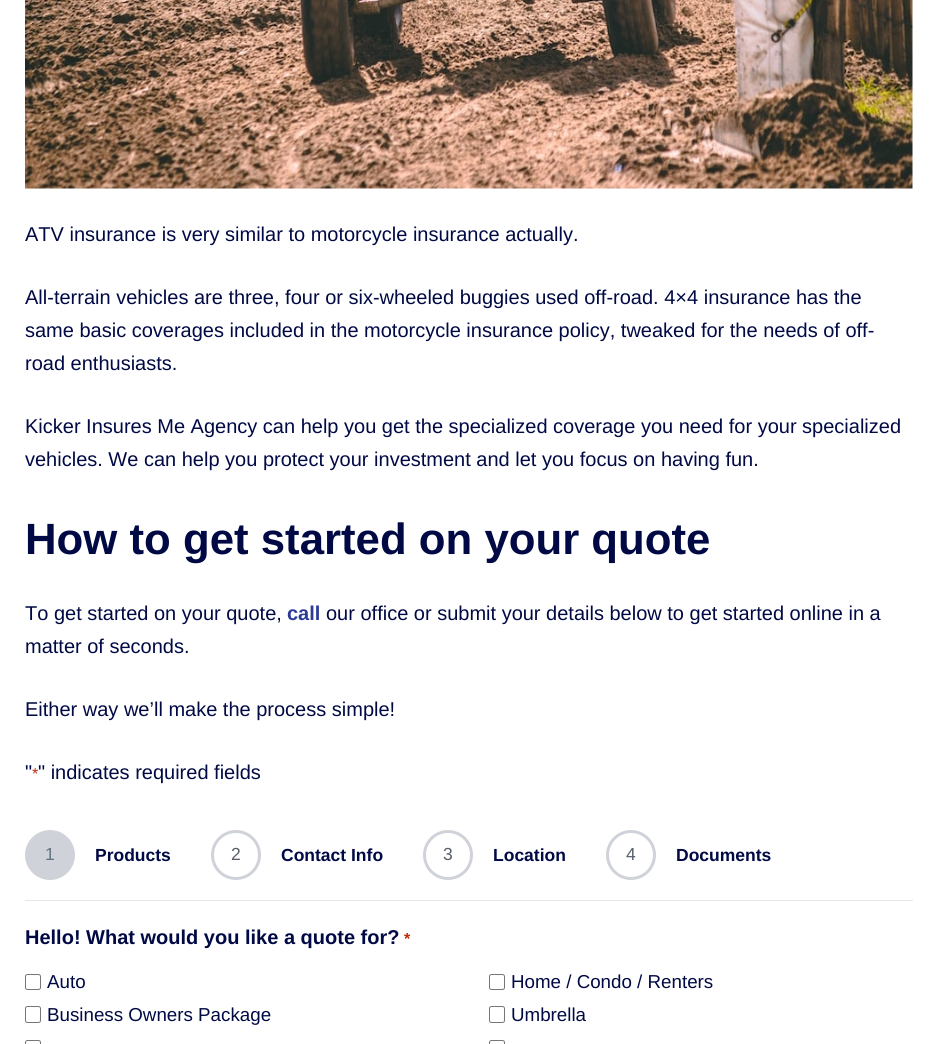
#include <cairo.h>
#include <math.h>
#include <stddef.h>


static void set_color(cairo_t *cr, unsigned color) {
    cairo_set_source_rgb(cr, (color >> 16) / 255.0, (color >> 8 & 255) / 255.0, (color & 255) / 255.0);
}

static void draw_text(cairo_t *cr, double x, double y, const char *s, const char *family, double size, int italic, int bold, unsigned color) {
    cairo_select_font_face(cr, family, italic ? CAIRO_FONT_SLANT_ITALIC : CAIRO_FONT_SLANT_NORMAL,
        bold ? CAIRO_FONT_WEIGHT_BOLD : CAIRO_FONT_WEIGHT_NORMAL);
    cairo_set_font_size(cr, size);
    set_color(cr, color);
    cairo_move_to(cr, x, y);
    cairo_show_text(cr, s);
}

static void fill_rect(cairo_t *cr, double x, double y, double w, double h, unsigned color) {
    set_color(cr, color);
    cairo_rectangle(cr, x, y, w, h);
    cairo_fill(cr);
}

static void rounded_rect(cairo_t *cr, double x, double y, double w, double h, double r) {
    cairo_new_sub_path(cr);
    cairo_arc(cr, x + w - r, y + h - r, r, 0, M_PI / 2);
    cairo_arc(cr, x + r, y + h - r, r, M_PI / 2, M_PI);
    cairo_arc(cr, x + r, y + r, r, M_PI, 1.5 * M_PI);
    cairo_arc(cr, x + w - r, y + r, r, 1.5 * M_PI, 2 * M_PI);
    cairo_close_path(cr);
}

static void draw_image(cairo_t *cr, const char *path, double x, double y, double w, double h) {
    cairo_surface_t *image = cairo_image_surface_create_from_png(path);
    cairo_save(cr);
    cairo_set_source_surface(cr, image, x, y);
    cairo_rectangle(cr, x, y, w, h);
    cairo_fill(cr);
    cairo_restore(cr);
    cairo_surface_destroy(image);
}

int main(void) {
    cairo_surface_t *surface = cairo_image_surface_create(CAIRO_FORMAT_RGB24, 937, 1044);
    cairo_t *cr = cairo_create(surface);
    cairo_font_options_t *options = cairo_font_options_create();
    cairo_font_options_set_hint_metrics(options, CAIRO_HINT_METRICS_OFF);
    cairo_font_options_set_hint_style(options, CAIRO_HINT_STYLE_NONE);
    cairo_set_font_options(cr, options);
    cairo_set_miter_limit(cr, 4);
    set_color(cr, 0xFFFFFF);
    cairo_paint(cr);
    draw_image(cr, "assets/img1.png", 25, 0, 888, 189);
    draw_text(cr, 25, 241, "ATV insurance is very similar to motorcycle insurance actually.", "Liberation Sans", 20, 0, 0, 0x000944);
    draw_text(cr, 25, 304, "All-terrain vehicles are three, four or six-wheeled buggies used off-road. 4×4 insurance has the", "Liberation Sans", 20, 0, 0, 0x000944);
    draw_text(cr, 25, 337, "same basic coverages included in the motorcycle insurance policy, tweaked for the needs of off-", "Liberation Sans", 20, 0, 0, 0x000944);
    draw_text(cr, 25, 370, "road enthusiasts.", "Liberation Sans", 20, 0, 0, 0x000944);
    draw_text(cr, 25, 433, "Kicker Insures Me Agency can help you get the specialized coverage you need for your specialized", "Liberation Sans", 20, 0, 0, 0x000944);
    draw_text(cr, 25, 466, "vehicles. We can help you protect your investment and let you focus on having fun.", "Liberation Sans", 20, 0, 0, 0x000944);
    draw_text(cr, 25, 554, "How to get started on your quote", "Liberation Sans", 43.75, 0, 1, 0x000944);
    draw_text(cr, 25, 620, "To get started on your quote,", "Liberation Sans", 20, 0, 0, 0x000944);
    draw_text(cr, 287, 620, "call", "Liberation Sans", 20, 0, 1, 0x2B3B97);
    draw_text(cr, 326, 620, "our office or submit your details below to get started online in a", "Liberation Sans", 20, 0, 0, 0x000944);
    draw_text(cr, 25, 653, "matter of seconds.", "Liberation Sans", 20, 0, 0, 0x000944);
    draw_text(cr, 25, 716, "Either way we’ll make the process simple!", "Liberation Sans", 20, 0, 0, 0x000944);
    draw_text(cr, 25, 779, "\"", "Liberation Sans", 20, 0, 0, 0x000944);
    draw_text(cr, 32, 779, "*", "Liberation Sans", 16, 0, 0, 0xC02B0A);
    draw_text(cr, 38, 779, "\" indicates required fields", "Liberation Sans", 20, 0, 0, 0x000944);
    fill_rect(cr, 25, 900, 888, 1, 0xE5E7EB);
    set_color(cr, 0xCFD3D9);
    cairo_new_path(cr);
    cairo_arc(cr, 50, 855, 23.5, 0, 2 * M_PI);
    cairo_fill_preserve(cr);
    cairo_set_line_width(cr, 3);
    cairo_stroke(cr);
    draw_text(cr, 45, 860, "1", "Liberation Sans", 17.5, 0, 0, 0x607382);
    draw_text(cr, 95, 861, "Products", "Liberation Sans", 17.5, 0, 1, 0x000944);
    cairo_new_path(cr);
    cairo_arc(cr, 236, 855, 23.5, 0, 2 * M_PI);
    set_color(cr, 0xCFD3D9);
    cairo_stroke(cr);
    draw_text(cr, 231, 860, "2", "Liberation Sans", 17.5, 0, 0, 0x585E6A);
    draw_text(cr, 281, 861, "Contact Info", "Liberation Sans", 17.5, 0, 1, 0x000944);
    cairo_new_path(cr);
    cairo_arc(cr, 448, 855, 23.5, 0, 2 * M_PI);
    set_color(cr, 0xCFD3D9);
    cairo_stroke(cr);
    draw_text(cr, 443, 860, "3", "Liberation Sans", 17.5, 0, 0, 0x585E6A);
    draw_text(cr, 493, 861, "Location", "Liberation Sans", 17.5, 0, 1, 0x000944);
    cairo_new_path(cr);
    cairo_arc(cr, 631, 855, 23.5, 0, 2 * M_PI);
    set_color(cr, 0xCFD3D9);
    cairo_stroke(cr);
    draw_text(cr, 626, 860, "4", "Liberation Sans", 17.5, 0, 0, 0x585E6A);
    draw_text(cr, 676, 861, "Documents", "Liberation Sans", 17.5, 0, 1, 0x000944);
    draw_text(cr, 25, 944, "Hello! What would you like a quote for?", "Liberation Sans", 20, 0, 1, 0x000944);
    draw_text(cr, 404, 944, "*", "Liberation Sans", 16, 0, 1, 0xC02B0A);
    rounded_rect(cr, 25.5, 974.5, 15, 15, 2);
    set_color(cr, 0x767676);
    cairo_set_line_width(cr, 1);
    cairo_stroke(cr);
    draw_text(cr, 47, 988, "Auto", "Liberation Sans", 18.75, 0, 0, 0x000944);
    rounded_rect(cr, 489.5, 974.5, 15, 15, 2);
    set_color(cr, 0x767676);
    cairo_stroke(cr);
    draw_text(cr, 511, 988, "Home / Condo / Renters", "Liberation Sans", 18.75, 0, 0, 0x000944);
    rounded_rect(cr, 25.5, 1006.5, 15, 16, 2);
    set_color(cr, 0x767676);
    cairo_stroke(cr);
    draw_text(cr, 47, 1021, "Business Owners Package", "Liberation Sans", 18.75, 0, 0, 0x000944);
    rounded_rect(cr, 489.5, 1006.5, 15, 16, 2);
    set_color(cr, 0x767676);
    cairo_stroke(cr);
    draw_text(cr, 511, 1021, "Umbrella", "Liberation Sans", 18.75, 0, 0, 0x000944);
    rounded_rect(cr, 25.5, 1040.5, 15, 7, 2);
    set_color(cr, 0x767676);
    cairo_stroke(cr);
    rounded_rect(cr, 489.5, 1040.5, 15, 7, 2);
    cairo_stroke(cr);
    cairo_surface_write_to_png(surface, "output.png");
    cairo_font_options_destroy(options);
    cairo_destroy(cr);
    cairo_surface_destroy(surface);
    return 0;
}
